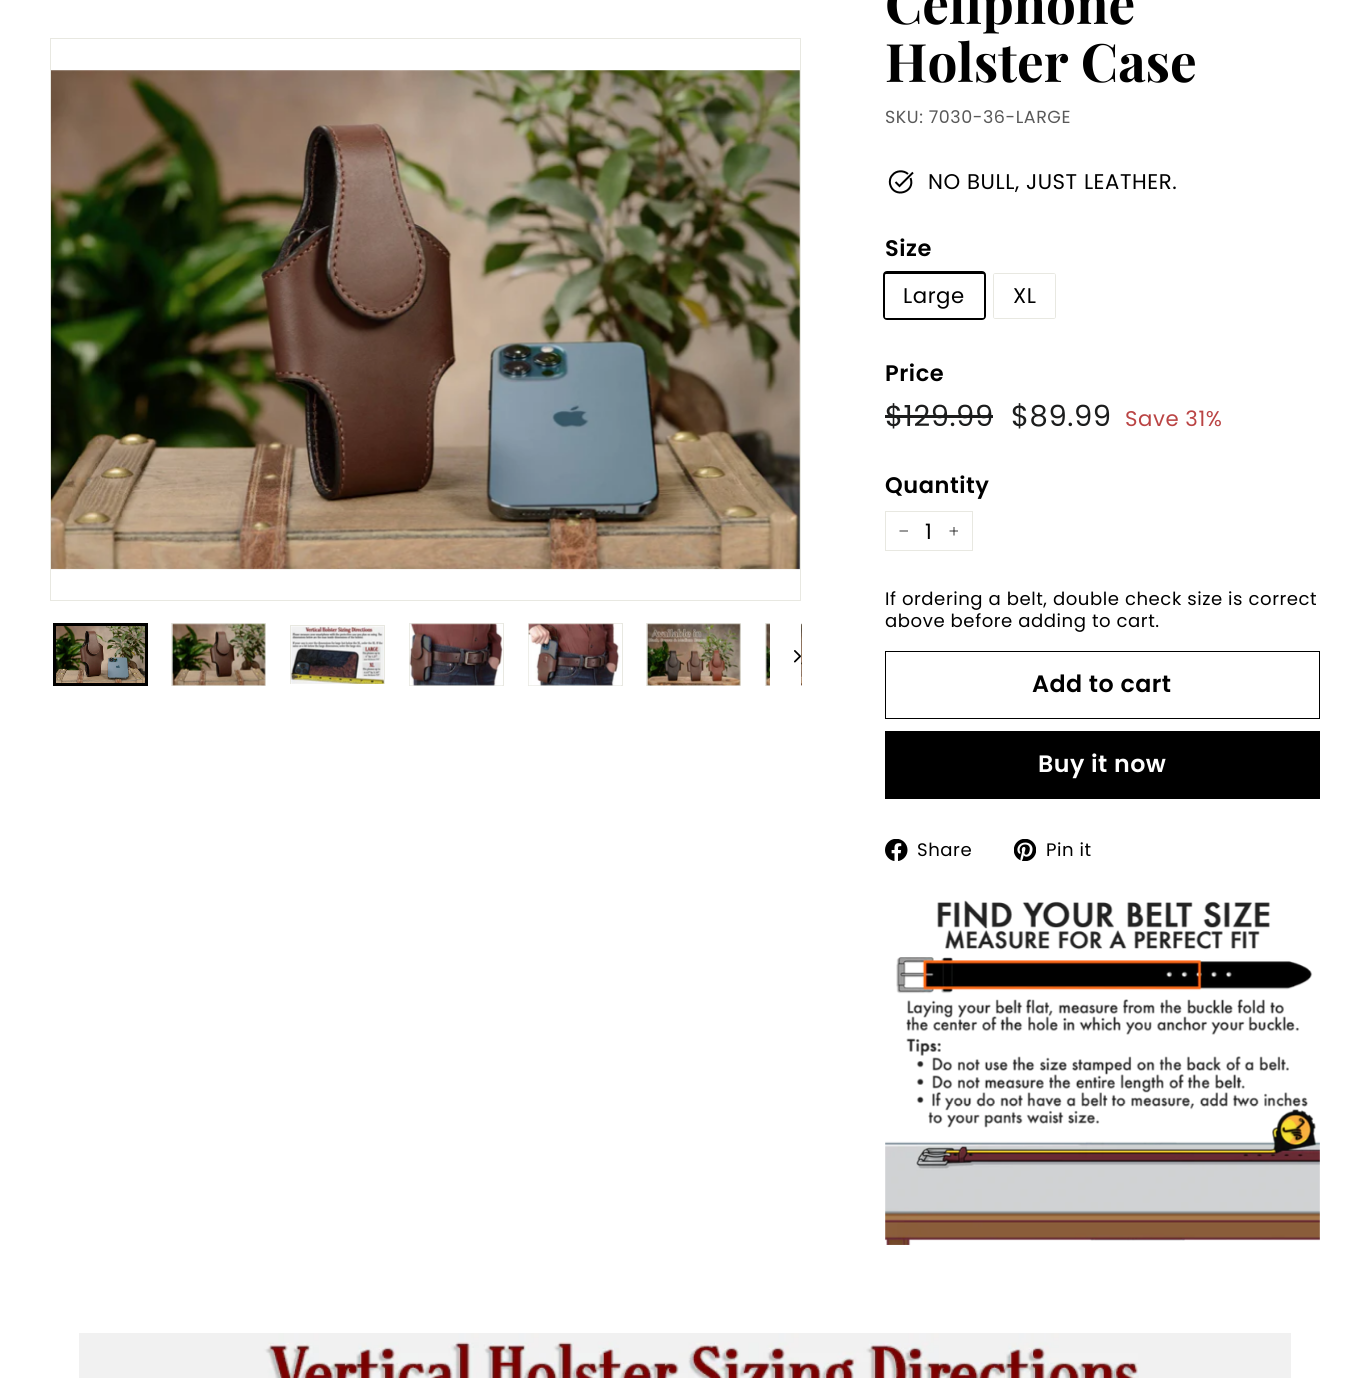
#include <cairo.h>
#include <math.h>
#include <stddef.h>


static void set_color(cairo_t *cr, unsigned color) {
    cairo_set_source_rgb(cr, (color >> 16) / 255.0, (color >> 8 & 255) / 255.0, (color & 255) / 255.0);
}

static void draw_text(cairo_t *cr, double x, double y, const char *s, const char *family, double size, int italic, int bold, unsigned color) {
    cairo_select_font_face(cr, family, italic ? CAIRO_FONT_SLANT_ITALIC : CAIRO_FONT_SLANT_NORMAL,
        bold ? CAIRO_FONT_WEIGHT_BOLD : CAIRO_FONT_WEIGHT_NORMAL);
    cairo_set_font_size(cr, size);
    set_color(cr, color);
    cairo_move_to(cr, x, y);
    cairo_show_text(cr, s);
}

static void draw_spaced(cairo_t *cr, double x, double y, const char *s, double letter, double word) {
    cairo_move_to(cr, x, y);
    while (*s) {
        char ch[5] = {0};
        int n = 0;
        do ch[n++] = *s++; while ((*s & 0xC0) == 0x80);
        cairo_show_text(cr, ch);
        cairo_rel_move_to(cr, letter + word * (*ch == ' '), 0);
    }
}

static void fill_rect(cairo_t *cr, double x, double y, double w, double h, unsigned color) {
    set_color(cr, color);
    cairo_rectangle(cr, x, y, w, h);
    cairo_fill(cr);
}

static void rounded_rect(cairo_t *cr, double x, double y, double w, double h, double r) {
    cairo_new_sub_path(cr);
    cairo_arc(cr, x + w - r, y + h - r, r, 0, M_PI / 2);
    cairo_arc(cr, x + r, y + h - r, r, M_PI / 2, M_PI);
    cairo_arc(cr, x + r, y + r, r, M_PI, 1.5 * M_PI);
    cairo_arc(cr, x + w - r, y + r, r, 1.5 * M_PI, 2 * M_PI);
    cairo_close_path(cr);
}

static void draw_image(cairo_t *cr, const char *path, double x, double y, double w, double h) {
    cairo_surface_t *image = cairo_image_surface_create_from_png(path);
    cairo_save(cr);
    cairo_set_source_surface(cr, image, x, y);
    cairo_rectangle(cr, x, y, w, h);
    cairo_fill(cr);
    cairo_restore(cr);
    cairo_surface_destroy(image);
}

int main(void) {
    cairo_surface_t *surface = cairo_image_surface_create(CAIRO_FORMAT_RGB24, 1369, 1378);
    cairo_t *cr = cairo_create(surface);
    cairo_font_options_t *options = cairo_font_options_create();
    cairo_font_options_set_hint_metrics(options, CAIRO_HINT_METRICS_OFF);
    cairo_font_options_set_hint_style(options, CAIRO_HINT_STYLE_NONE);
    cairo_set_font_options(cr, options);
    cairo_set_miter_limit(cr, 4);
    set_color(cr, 0xFFFFFF);
    cairo_paint(cr);
    cairo_rectangle(cr, 50.5, 38.5, 750, 562);
    set_color(cr, 0xE8E8E1);
    cairo_set_line_width(cr, 1);
    cairo_stroke(cr);
    draw_image(cr, "assets/img1.png", 51, 70, 749, 500);
    draw_image(cr, "assets/img2.png", 56, 626, 89, 57);
    cairo_rectangle(cr, 54.5, 624.5, 92, 60);
    set_color(cr, 0x000000);
    cairo_set_line_width(cr, 3);
    cairo_stroke(cr);
    cairo_rectangle(cr, 171.5, 623.5, 94, 62);
    set_color(cr, 0xE8E8E1);
    cairo_set_line_width(cr, 1);
    cairo_stroke(cr);
    draw_image(cr, "assets/img3.png", 172, 623, 94, 63);
    cairo_save(cr);
    cairo_rectangle(cr, 290, 625, 95, 59);
    cairo_clip(cr);
    cairo_rectangle(cr, 290.5, 625.5, 94, 59);
    cairo_stroke(cr);
    cairo_restore(cr);
    draw_image(cr, "assets/img4.png", 290, 626, 94, 58);
    cairo_rectangle(cr, 409.5, 623.5, 94, 62);
    cairo_stroke(cr);
    draw_image(cr, "assets/img5.png", 409, 623, 94, 63);
    cairo_rectangle(cr, 528.5, 623.5, 94, 62);
    cairo_stroke(cr);
    draw_image(cr, "assets/img6.png", 528, 623, 93, 63);
    cairo_rectangle(cr, 646.5, 623.5, 94, 62);
    cairo_stroke(cr);
    draw_image(cr, "assets/img7.png", 647, 623, 94, 63);
    cairo_save(cr);
    cairo_rectangle(cr, 765, 623, 36, 63);
    cairo_clip(cr);
    cairo_rectangle(cr, 765.5, 623.5, 94, 62);
    cairo_stroke(cr);
    cairo_restore(cr);
    draw_image(cr, "assets/img8.png", 765, 623, 37, 63);
    fill_rect(cr, 770, 623, 31, 63, 0xFFFFFF);
    draw_image(cr, "assets/img9.png", 794, 650, 7, 13);
    draw_text(cr, 885, 24, "Cellphone", "Playfair Display", 53, 0, 1, 0x000000);
    draw_text(cr, 885, 82, "Holster Case", "Playfair Display", 53, 0, 1, 0x000000);
    cairo_select_font_face(cr, "Poppins", CAIRO_FONT_SLANT_NORMAL, CAIRO_FONT_WEIGHT_NORMAL);
    cairo_set_font_size(cr, 17.5);
    set_color(cr, 0x595959);
    draw_spaced(cr, 885, 123, "SKU: 7030-36-LARGE", 0.55, 0);
    cairo_new_path(cr);
    cairo_move_to(cr, 910.5, 178);
    cairo_curve_to(cr, 916, 192.5, 893.5, 199, 890, 184);
    cairo_curve_to(cr, 889.5, 181, 890, 177.5, 892.5, 175);
    cairo_curve_to(cr, 896, 170.5, 903.5, 170, 908, 174);
    cairo_move_to(cr, 895.5, 182);
    cairo_line_to(cr, 899.5, 186);
    cairo_line_to(cr, 913, 172.5);
    set_color(cr, 0x000000);
    cairo_set_line_width(cr, 2);
    cairo_stroke(cr);
    cairo_set_font_size(cr, 21.25);
    draw_spaced(cr, 928, 189, "NO BULL, JUST LEATHER.", 0.55, 0);
    cairo_select_font_face(cr, "Poppins SemiBold", CAIRO_FONT_SLANT_NORMAL, CAIRO_FONT_WEIGHT_NORMAL);
    cairo_set_font_size(cr, 22.5);
    draw_spaced(cr, 885, 256, "Size", 0.55, 0);
    rounded_rect(cr, 884.5, 272.5, 100, 46, 2.5);
    cairo_set_line_width(cr, 3);
    cairo_stroke(cr);
    set_color(cr, 0xFFFFFF);
    rounded_rect(cr, 885, 274, 99, 44, 1);
    cairo_fill(cr);
    cairo_select_font_face(cr, "Poppins", CAIRO_FONT_SLANT_NORMAL, CAIRO_FONT_WEIGHT_NORMAL);
    cairo_set_font_size(cr, 21.25);
    set_color(cr, 0x000000);
    draw_spaced(cr, 903, 303, "Large", 0.55, 0);
    rounded_rect(cr, 993.5, 273.5, 62, 45, 2);
    set_color(cr, 0xE8E8E1);
    cairo_set_line_width(cr, 1);
    cairo_stroke(cr);
    set_color(cr, 0xFFFFFF);
    rounded_rect(cr, 994, 274, 61, 44, 1);
    cairo_fill(cr);
    set_color(cr, 0x000000);
    draw_spaced(cr, 1013, 303, "XL", 0.55, 0);
    cairo_select_font_face(cr, "Poppins SemiBold", CAIRO_FONT_SLANT_NORMAL, CAIRO_FONT_WEIGHT_NORMAL);
    cairo_set_font_size(cr, 22.5);
    draw_spaced(cr, 885, 381, "Price", 0.55, 0);
    cairo_select_font_face(cr, "Poppins", CAIRO_FONT_SLANT_NORMAL, CAIRO_FONT_WEIGHT_NORMAL);
    cairo_set_font_size(cr, 29);
    set_color(cr, 0x1C1D1D);
    draw_spaced(cr, 885, 426, "$129.99", 0.55, 0);
    fill_rect(cr, 885, 415, 108, 3, 0x1C1D1D);
    draw_spaced(cr, 1011, 426, "$89.99", 0.55, 0);
    cairo_set_font_size(cr, 21.25);
    set_color(cr, 0xBA4444);
    draw_spaced(cr, 1125, 426, "Save 31%", 0.55, 0);
    cairo_select_font_face(cr, "Poppins SemiBold", CAIRO_FONT_SLANT_NORMAL, CAIRO_FONT_WEIGHT_NORMAL);
    cairo_set_font_size(cr, 22.5);
    set_color(cr, 0x000000);
    draw_spaced(cr, 885, 493, "Quantity", 0.55, 0);
    cairo_rectangle(cr, 885.5, 511.5, 87, 39);
    set_color(cr, 0xE8E8E1);
    cairo_stroke(cr);
    cairo_select_font_face(cr, "Poppins", CAIRO_FONT_SLANT_NORMAL, CAIRO_FONT_WEIGHT_NORMAL);
    cairo_set_font_size(cr, 21.25);
    set_color(cr, 0x000000);
    draw_spaced(cr, 925, 539, "1", 0.55, 0);
    cairo_new_path(cr);
    cairo_move_to(cr, 908, 531);
    cairo_line_to(cr, 899.5, 531);
    cairo_move_to(cr, 954, 527);
    cairo_line_to(cr, 954, 535.5);
    cairo_move_to(cr, 958, 531);
    cairo_line_to(cr, 949.5, 531);
    cairo_set_line_width(cr, 0.8);
    cairo_stroke(cr);
    cairo_set_font_size(cr, 18.1);
    draw_spaced(cr, 885, 605, "If ordering a belt, double check size is correct", 0.55, 0);
    draw_spaced(cr, 885, 627, "above before adding to cart.", 0.55, 0);
    cairo_rectangle(cr, 885.5, 651.5, 434, 67);
    cairo_set_line_width(cr, 1);
    cairo_stroke(cr);
    cairo_select_font_face(cr, "Poppins SemiBold", CAIRO_FONT_SLANT_NORMAL, CAIRO_FONT_WEIGHT_NORMAL);
    cairo_set_font_size(cr, 23.75);
    draw_spaced(cr, 1032, 692, "Add to cart", 0.5, 0);
    fill_rect(cr, 885, 731, 435, 68, 0x000000);
    set_color(cr, 0xFFFFFF);
    draw_spaced(cr, 1038, 772, "Buy it now", 0.5, 0);
    draw_image(cr, "assets/img10.png", 885, 839, 23, 22);
    cairo_select_font_face(cr, "Poppins", CAIRO_FONT_SLANT_NORMAL, CAIRO_FONT_WEIGHT_NORMAL);
    cairo_set_font_size(cr, 18.1);
    set_color(cr, 0x000000);
    draw_spaced(cr, 917, 856, "Share", 0.55, 0);
    draw_image(cr, "assets/img11.png", 1014, 839, 22, 22);
    draw_spaced(cr, 1046, 856, "Pin it", 0.55, 0);
    draw_image(cr, "assets/img12.png", 885, 900, 435, 345);
    draw_image(cr, "assets/img13.png", 79, 1333, 1212, 45);
    cairo_surface_write_to_png(surface, "output.png");
    cairo_font_options_destroy(options);
    cairo_destroy(cr);
    cairo_surface_destroy(surface);
    return 0;
}
